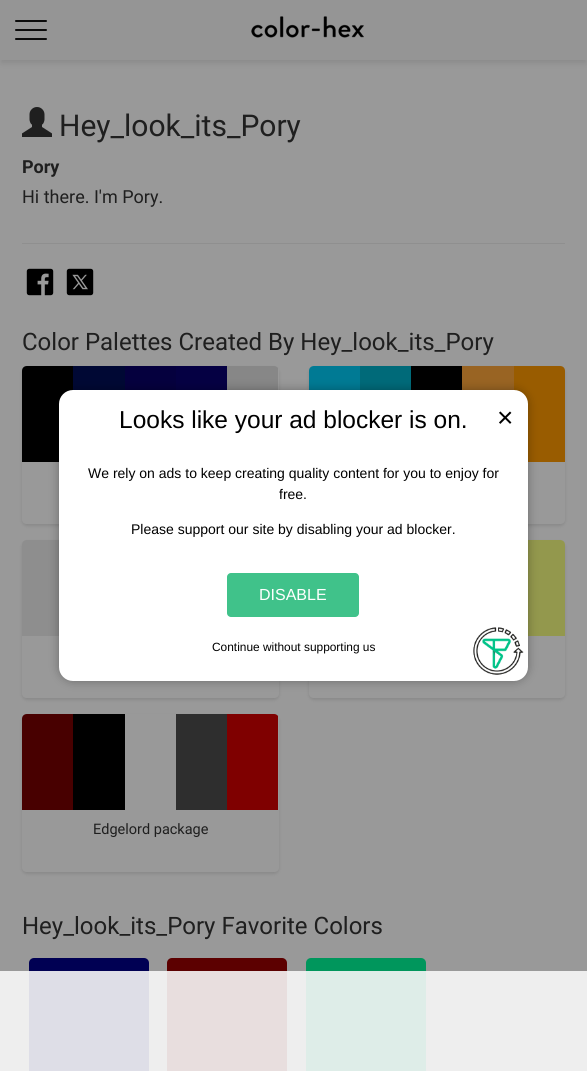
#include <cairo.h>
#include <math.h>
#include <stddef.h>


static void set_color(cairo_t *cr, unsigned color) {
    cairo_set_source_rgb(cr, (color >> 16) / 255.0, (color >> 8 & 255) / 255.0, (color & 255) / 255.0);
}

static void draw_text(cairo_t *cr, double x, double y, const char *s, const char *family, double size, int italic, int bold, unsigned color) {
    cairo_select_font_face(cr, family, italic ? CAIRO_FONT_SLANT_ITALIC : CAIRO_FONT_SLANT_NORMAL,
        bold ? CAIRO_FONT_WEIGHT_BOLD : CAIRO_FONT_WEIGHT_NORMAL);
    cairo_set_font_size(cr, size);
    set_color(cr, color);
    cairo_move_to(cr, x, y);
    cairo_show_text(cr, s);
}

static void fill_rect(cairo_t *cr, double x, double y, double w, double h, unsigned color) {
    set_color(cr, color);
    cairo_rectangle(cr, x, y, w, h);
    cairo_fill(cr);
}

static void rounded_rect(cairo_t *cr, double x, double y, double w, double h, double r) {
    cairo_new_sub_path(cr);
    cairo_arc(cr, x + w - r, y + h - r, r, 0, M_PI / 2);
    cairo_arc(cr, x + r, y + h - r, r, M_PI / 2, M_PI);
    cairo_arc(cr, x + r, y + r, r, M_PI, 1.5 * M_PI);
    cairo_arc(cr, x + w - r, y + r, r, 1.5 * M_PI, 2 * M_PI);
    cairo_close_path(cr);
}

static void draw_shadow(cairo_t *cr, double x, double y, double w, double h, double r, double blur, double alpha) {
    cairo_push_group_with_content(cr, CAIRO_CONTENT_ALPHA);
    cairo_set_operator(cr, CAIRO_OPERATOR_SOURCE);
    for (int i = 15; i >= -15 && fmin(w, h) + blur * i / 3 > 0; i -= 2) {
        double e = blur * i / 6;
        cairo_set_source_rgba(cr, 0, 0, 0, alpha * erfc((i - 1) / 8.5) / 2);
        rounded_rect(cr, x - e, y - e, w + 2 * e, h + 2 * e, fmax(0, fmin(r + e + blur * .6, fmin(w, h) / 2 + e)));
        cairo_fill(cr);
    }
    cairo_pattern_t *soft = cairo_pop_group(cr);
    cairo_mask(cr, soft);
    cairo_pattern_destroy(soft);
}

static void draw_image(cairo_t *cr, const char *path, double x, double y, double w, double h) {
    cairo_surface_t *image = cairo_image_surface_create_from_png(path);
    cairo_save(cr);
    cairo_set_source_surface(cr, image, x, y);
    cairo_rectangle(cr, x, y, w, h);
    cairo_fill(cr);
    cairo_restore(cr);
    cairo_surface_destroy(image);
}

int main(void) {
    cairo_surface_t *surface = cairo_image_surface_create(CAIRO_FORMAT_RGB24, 587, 1071);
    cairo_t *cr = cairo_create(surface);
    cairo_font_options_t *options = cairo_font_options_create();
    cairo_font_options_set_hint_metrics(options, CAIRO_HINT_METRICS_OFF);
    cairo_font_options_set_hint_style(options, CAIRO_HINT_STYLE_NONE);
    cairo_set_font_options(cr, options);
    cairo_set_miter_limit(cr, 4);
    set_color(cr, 0x999999);
    cairo_paint(cr);
    fill_rect(cr, 0, 971, 587, 100, 0xEEEEEE);
    set_color(cr, 0x000000);
    draw_shadow(cr, 1, 5, 585, 58, 0, 3, 0.1);
    fill_rect(cr, 0, 0, 587, 60, 0x959595);
    set_color(cr, 0x0B0B0B);
    rounded_rect(cr, 15, 20, 32, 2, 1);
    cairo_fill(cr);
    rounded_rect(cr, 15, 29, 32, 2, 1);
    cairo_fill(cr);
    rounded_rect(cr, 15, 38, 32, 2, 1);
    cairo_fill(cr);
    draw_image(cr, "assets/img1.png", 251, 16, 113, 22);
    draw_image(cr, "assets/img2.png", 22, 107, 30, 30);
    draw_text(cr, 59, 136, "Hey_look_its_Pory", "Roboto", 30, 0, 0, 0x1F1F1F);
    draw_text(cr, 22, 173, "Pory", "Roboto", 18, 0, 1, 0x1F1F1F);
    draw_text(cr, 22, 203, "Hi there. I'm Pory.", "Roboto", 18, 0, 0, 0x1F1F1F);
    fill_rect(cr, 22, 243, 543, 1, 0x8F8F8F);
    draw_image(cr, "assets/img3.png", 26, 268, 28, 28);
    draw_image(cr, "assets/img4.png", 66, 268, 28, 28);
    draw_text(cr, 22, 350, "Color Palettes Created By Hey_look_its_Pory", "Roboto", 24, 0, 0, 0x1F1F1F);
    cairo_save(cr);
    cairo_set_fill_rule(cr, CAIRO_FILL_RULE_EVEN_ODD);
    cairo_new_path(cr);
    cairo_move_to(cr, 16, 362);
    cairo_line_to(cr, 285, 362);
    cairo_line_to(cr, 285, 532);
    cairo_line_to(cr, 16, 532);
    cairo_close_path(cr);
    cairo_move_to(cr, 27, 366);
    cairo_line_to(cr, 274, 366);
    cairo_curve_to(cr, 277, 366, 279, 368, 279, 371);
    cairo_line_to(cr, 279, 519);
    cairo_curve_to(cr, 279, 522, 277, 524, 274, 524);
    cairo_line_to(cr, 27, 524);
    cairo_curve_to(cr, 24, 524, 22, 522, 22, 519);
    cairo_line_to(cr, 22, 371);
    cairo_curve_to(cr, 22, 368, 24, 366, 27, 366);
    cairo_close_path(cr);
    cairo_clip(cr);
    set_color(cr, 0x898989);
    draw_shadow(cr, 22, 368, 257, 158, 5, 1.5, 1);
    cairo_restore(cr);
    set_color(cr, 0x000000);
    cairo_new_path(cr);
    cairo_move_to(cr, 27, 366);
    cairo_line_to(cr, 73, 366);
    cairo_line_to(cr, 73, 462);
    cairo_line_to(cr, 22, 462);
    cairo_line_to(cr, 22, 371);
    cairo_curve_to(cr, 22, 368, 24, 366, 27, 366);
    cairo_close_path(cr);
    cairo_fill(cr);
    fill_rect(cr, 73, 366, 52, 24, 0x000834);
    fill_rect(cr, 125, 366, 51, 24, 0x05003E);
    fill_rect(cr, 176, 366, 51, 24, 0x050043);
    cairo_save(cr);
    rounded_rect(cr, 22, 366, 257, 158, 5);
    cairo_clip(cr);
    fill_rect(cr, 227, 366, 51, 24, 0x878787);
    cairo_restore(cr);
    cairo_save(cr);
    cairo_set_fill_rule(cr, CAIRO_FILL_RULE_EVEN_ODD);
    cairo_new_path(cr);
    cairo_move_to(cr, 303, 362);
    cairo_line_to(cr, 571, 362);
    cairo_line_to(cr, 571, 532);
    cairo_line_to(cr, 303, 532);
    cairo_close_path(cr);
    cairo_move_to(cr, 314, 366);
    cairo_line_to(cr, 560, 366);
    cairo_curve_to(cr, 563, 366, 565, 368, 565, 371);
    cairo_line_to(cr, 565, 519);
    cairo_curve_to(cr, 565, 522, 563, 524, 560, 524);
    cairo_line_to(cr, 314, 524);
    cairo_curve_to(cr, 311, 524, 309, 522, 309, 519);
    cairo_line_to(cr, 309, 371);
    cairo_curve_to(cr, 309, 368, 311, 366, 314, 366);
    cairo_close_path(cr);
    cairo_clip(cr);
    set_color(cr, 0x898989);
    draw_shadow(cr, 309, 368, 256, 158, 5, 1.5, 1);
    cairo_restore(cr);
    set_color(cr, 0x007A94);
    cairo_new_path(cr);
    cairo_move_to(cr, 314, 366);
    cairo_line_to(cr, 360, 366);
    cairo_line_to(cr, 360, 462);
    cairo_line_to(cr, 309, 462);
    cairo_line_to(cr, 309, 371);
    cairo_curve_to(cr, 309, 368, 311, 366, 314, 366);
    cairo_close_path(cr);
    cairo_fill(cr);
    fill_rect(cr, 360, 366, 51, 24, 0x006A79);
    fill_rect(cr, 411, 366, 51, 24, 0x000000);
    fill_rect(cr, 462, 366, 52, 24, 0x996423);
    set_color(cr, 0x995C00);
    cairo_new_path(cr);
    cairo_move_to(cr, 514, 366);
    cairo_line_to(cr, 560, 366);
    cairo_curve_to(cr, 563, 366, 565, 368, 565, 371);
    cairo_line_to(cr, 565, 462);
    cairo_line_to(cr, 514, 462);
    cairo_close_path(cr);
    cairo_fill(cr);
    cairo_save(cr);
    cairo_set_fill_rule(cr, CAIRO_FILL_RULE_EVEN_ODD);
    cairo_new_path(cr);
    cairo_move_to(cr, 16, 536);
    cairo_line_to(cr, 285, 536);
    cairo_line_to(cr, 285, 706);
    cairo_line_to(cr, 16, 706);
    cairo_close_path(cr);
    cairo_move_to(cr, 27, 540);
    cairo_line_to(cr, 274, 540);
    cairo_curve_to(cr, 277, 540, 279, 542, 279, 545);
    cairo_line_to(cr, 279, 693);
    cairo_curve_to(cr, 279, 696, 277, 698, 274, 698);
    cairo_line_to(cr, 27, 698);
    cairo_curve_to(cr, 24, 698, 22, 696, 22, 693);
    cairo_line_to(cr, 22, 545);
    cairo_curve_to(cr, 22, 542, 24, 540, 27, 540);
    cairo_close_path(cr);
    cairo_clip(cr);
    set_color(cr, 0x898989);
    draw_shadow(cr, 22, 542, 257, 158, 5, 1.5, 1);
    cairo_restore(cr);
    set_color(cr, 0x8E8E8E);
    cairo_new_path(cr);
    cairo_move_to(cr, 27, 540);
    cairo_line_to(cr, 73, 540);
    cairo_line_to(cr, 73, 636);
    cairo_line_to(cr, 22, 636);
    cairo_line_to(cr, 22, 545);
    cairo_curve_to(cr, 22, 542, 24, 540, 27, 540);
    cairo_close_path(cr);
    cairo_fill(cr);
    cairo_save(cr);
    cairo_set_fill_rule(cr, CAIRO_FILL_RULE_EVEN_ODD);
    cairo_new_path(cr);
    cairo_move_to(cr, 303, 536);
    cairo_line_to(cr, 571, 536);
    cairo_line_to(cr, 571, 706);
    cairo_line_to(cr, 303, 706);
    cairo_close_path(cr);
    cairo_move_to(cr, 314, 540);
    cairo_line_to(cr, 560, 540);
    cairo_curve_to(cr, 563, 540, 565, 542, 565, 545);
    cairo_line_to(cr, 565, 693);
    cairo_curve_to(cr, 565, 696, 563, 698, 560, 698);
    cairo_line_to(cr, 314, 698);
    cairo_curve_to(cr, 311, 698, 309, 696, 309, 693);
    cairo_line_to(cr, 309, 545);
    cairo_curve_to(cr, 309, 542, 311, 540, 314, 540);
    cairo_close_path(cr);
    cairo_clip(cr);
    set_color(cr, 0x898989);
    draw_shadow(cr, 309, 542, 256, 158, 5, 1.5, 1);
    cairo_restore(cr);
    set_color(cr, 0x93984D);
    cairo_new_path(cr);
    cairo_move_to(cr, 514, 540);
    cairo_line_to(cr, 560, 540);
    cairo_curve_to(cr, 563, 540, 565, 542, 565, 545);
    cairo_line_to(cr, 565, 636);
    cairo_line_to(cr, 514, 636);
    cairo_close_path(cr);
    cairo_fill(cr);
    cairo_save(cr);
    cairo_set_fill_rule(cr, CAIRO_FILL_RULE_EVEN_ODD);
    cairo_new_path(cr);
    cairo_move_to(cr, 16, 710);
    cairo_line_to(cr, 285, 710);
    cairo_line_to(cr, 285, 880);
    cairo_line_to(cr, 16, 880);
    cairo_close_path(cr);
    cairo_move_to(cr, 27, 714);
    cairo_line_to(cr, 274, 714);
    cairo_curve_to(cr, 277, 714, 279, 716, 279, 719);
    cairo_line_to(cr, 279, 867);
    cairo_curve_to(cr, 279, 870, 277, 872, 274, 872);
    cairo_line_to(cr, 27, 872);
    cairo_curve_to(cr, 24, 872, 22, 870, 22, 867);
    cairo_line_to(cr, 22, 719);
    cairo_curve_to(cr, 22, 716, 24, 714, 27, 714);
    cairo_close_path(cr);
    cairo_clip(cr);
    set_color(cr, 0x898989);
    draw_shadow(cr, 22, 716, 257, 158, 5, 1.5, 1);
    cairo_restore(cr);
    set_color(cr, 0x480000);
    cairo_new_path(cr);
    cairo_move_to(cr, 27, 714);
    cairo_line_to(cr, 73, 714);
    cairo_line_to(cr, 73, 810);
    cairo_line_to(cr, 22, 810);
    cairo_line_to(cr, 22, 719);
    cairo_curve_to(cr, 22, 716, 24, 714, 27, 714);
    cairo_close_path(cr);
    cairo_fill(cr);
    fill_rect(cr, 73, 714, 52, 96, 0x000000);
    fill_rect(cr, 176, 714, 51, 96, 0x2E2E2E);
    cairo_save(cr);
    rounded_rect(cr, 22, 714, 257, 158, 5);
    cairo_clip(cr);
    fill_rect(cr, 227, 714, 51, 96, 0x7F0000);
    cairo_restore(cr);
    draw_text(cr, 93, 834, "Edgelord package", "Roboto", 14.5, 0, 0, 0x1F1F1F);
    draw_text(cr, 22, 934, "Hey_look_its_Pory Favorite Colors", "Roboto", 24, 0, 0, 0x1F1F1F);
    set_color(cr, 0x000053);
    rounded_rect(cr, 29, 958, 120, 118, 5);
    cairo_fill(cr);
    fill_rect(cr, 29, 971, 120, 100, 0xDEDEE7);
    set_color(cr, 0x5C0000);
    rounded_rect(cr, 167, 958, 120, 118, 5);
    cairo_fill(cr);
    fill_rect(cr, 167, 971, 120, 100, 0xE8DEDE);
    set_color(cr, 0x00965C);
    rounded_rect(cr, 306, 958, 120, 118, 5);
    cairo_fill(cr);
    fill_rect(cr, 306, 971, 120, 100, 0xDEEDE8);
    set_color(cr, 0x000000);
    draw_shadow(cr, 59, 390, 469, 291, 14, 5, 0.3);
    set_color(cr, 0xFFFFFF);
    rounded_rect(cr, 59, 390, 469, 291, 14);
    cairo_fill(cr);
    draw_text(cr, 119, 428, "Looks like your ad blocker is on.", "Liberation Sans", 24.5, 0, 0, 0x000000);
    draw_text(cr, 497, 427, "×", "Liberation Sans", 28, 0, 0, 0x000000);
    draw_text(cr, 88, 478, "We rely on ads to keep creating quality content for you to enjoy for", "Liberation Sans", 14, 0, 0, 0x000000);
    draw_text(cr, 279, 499, "free.", "Liberation Sans", 14, 0, 0, 0x000000);
    draw_text(cr, 131, 534, "Please support our site by disabling your ad blocker.", "Liberation Sans", 14, 0, 0, 0x000000);
    set_color(cr, 0x40C28A);
    rounded_rect(cr, 227, 573, 132, 44, 4);
    cairo_fill(cr);
    draw_text(cr, 259, 600, "DISABLE", "Liberation Sans", 16, 0, 0, 0xFFFFFF);
    draw_text(cr, 212, 651, "Continue without supporting us", "Liberation Sans", 11.9, 0, 0, 0x000000);
    draw_image(cr, "assets/img5.png", 473, 627, 51, 48);
    cairo_surface_write_to_png(surface, "output.png");
    cairo_font_options_destroy(options);
    cairo_destroy(cr);
    cairo_surface_destroy(surface);
    return 0;
}
